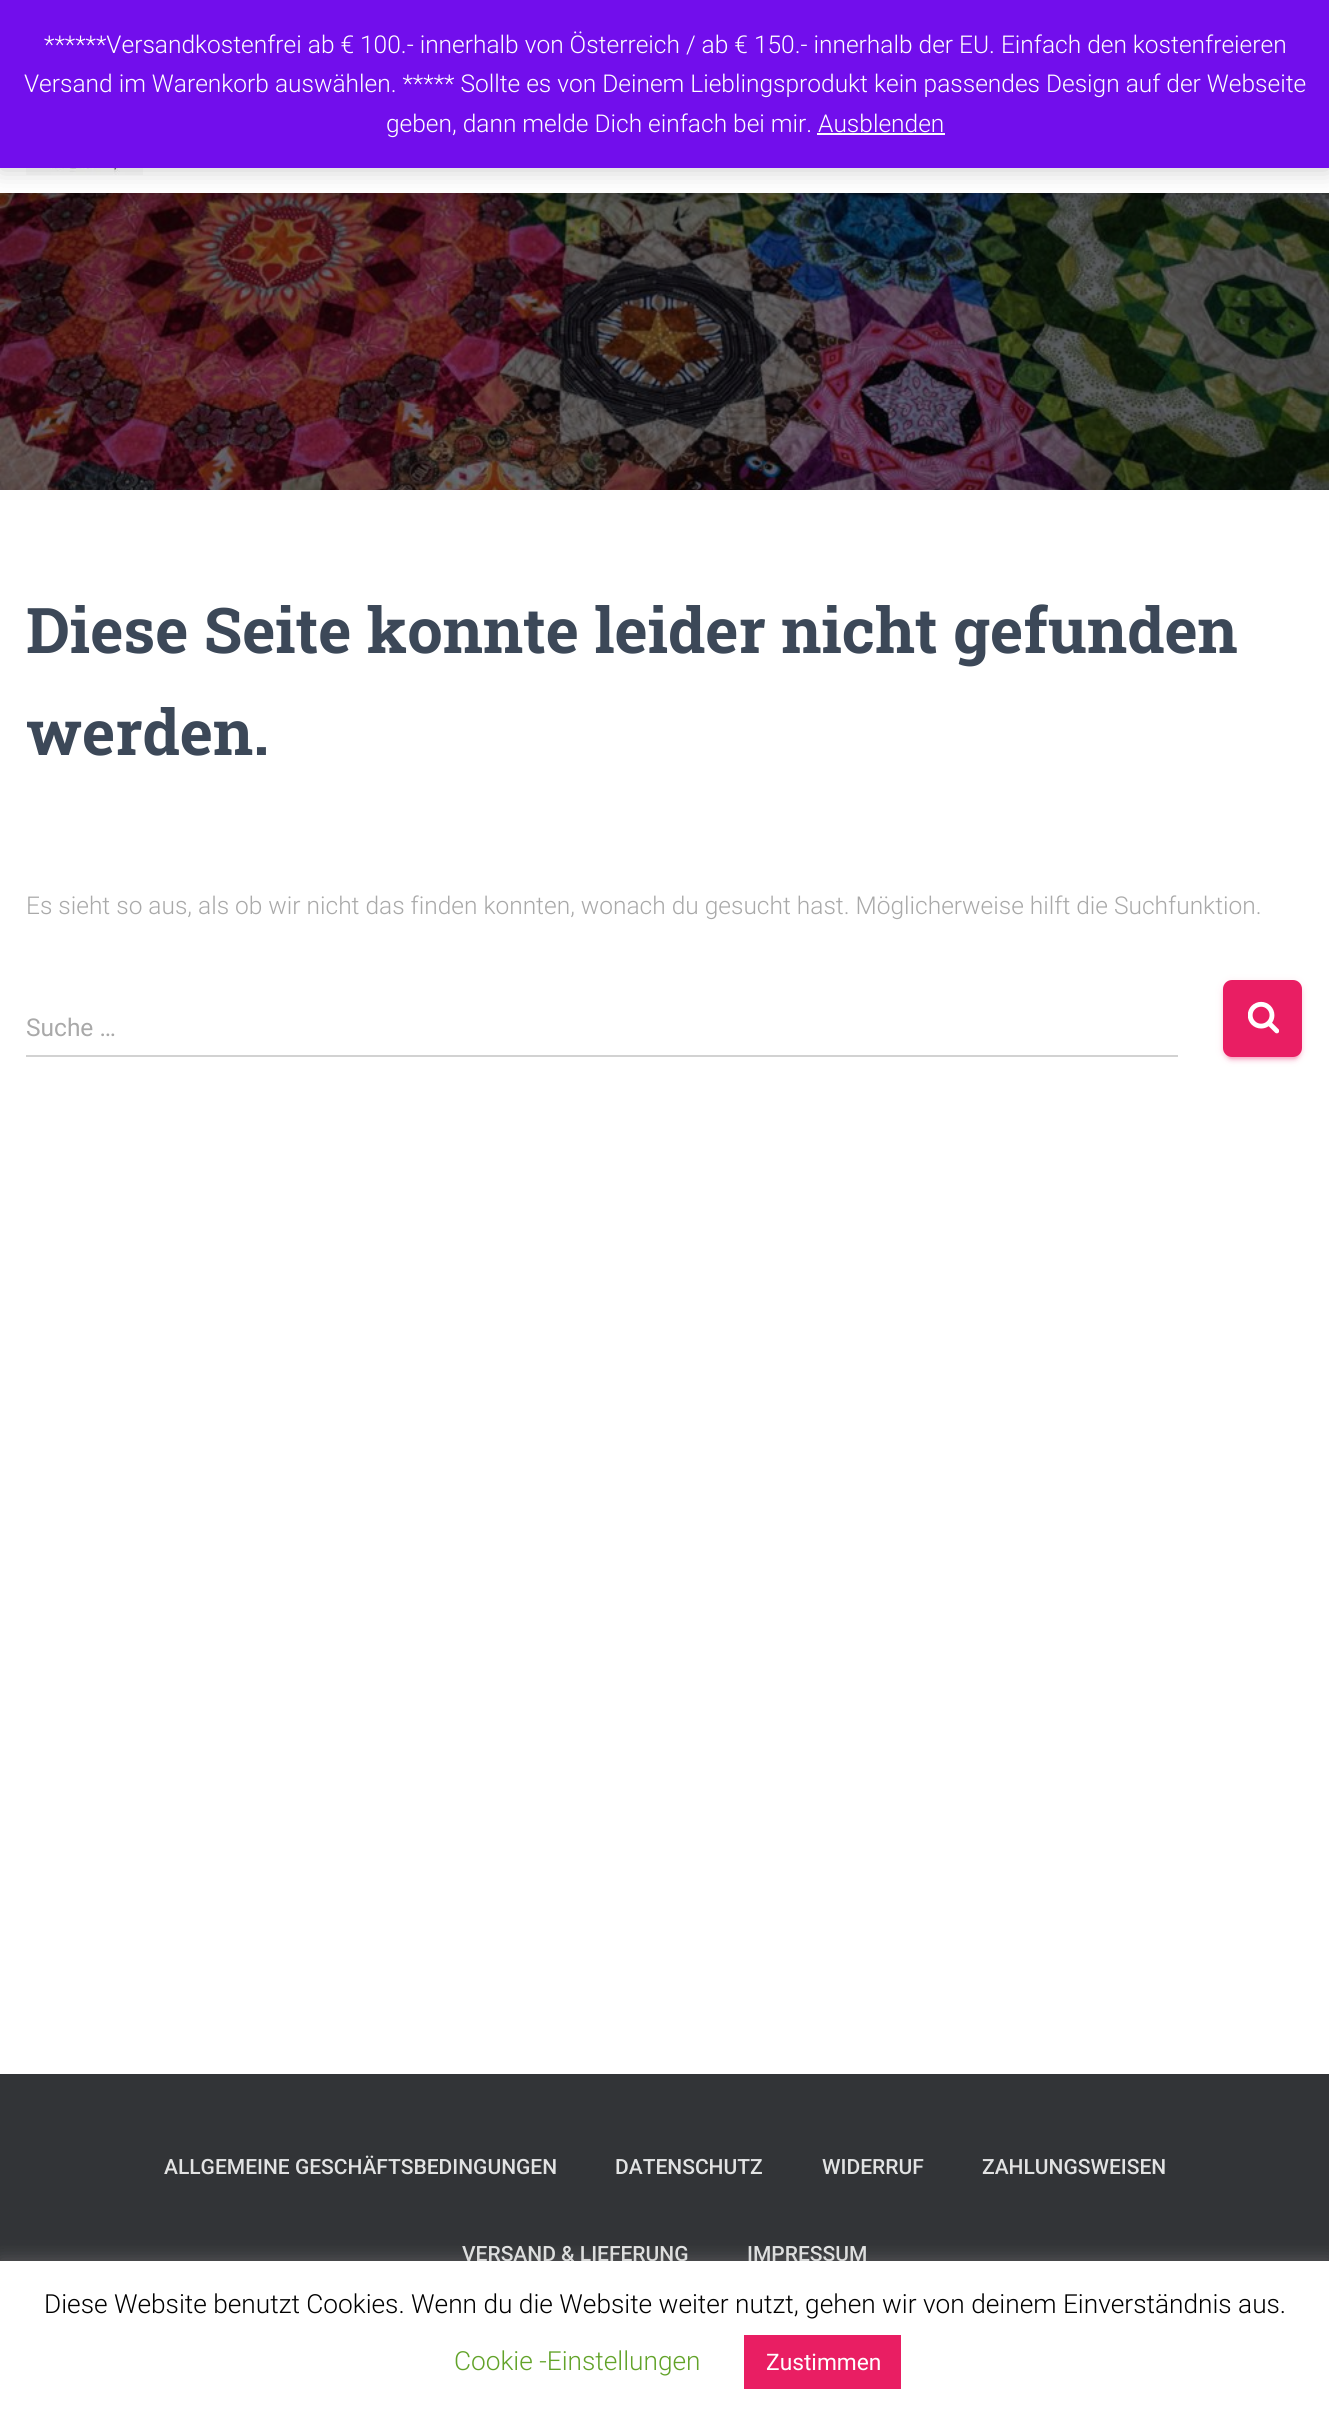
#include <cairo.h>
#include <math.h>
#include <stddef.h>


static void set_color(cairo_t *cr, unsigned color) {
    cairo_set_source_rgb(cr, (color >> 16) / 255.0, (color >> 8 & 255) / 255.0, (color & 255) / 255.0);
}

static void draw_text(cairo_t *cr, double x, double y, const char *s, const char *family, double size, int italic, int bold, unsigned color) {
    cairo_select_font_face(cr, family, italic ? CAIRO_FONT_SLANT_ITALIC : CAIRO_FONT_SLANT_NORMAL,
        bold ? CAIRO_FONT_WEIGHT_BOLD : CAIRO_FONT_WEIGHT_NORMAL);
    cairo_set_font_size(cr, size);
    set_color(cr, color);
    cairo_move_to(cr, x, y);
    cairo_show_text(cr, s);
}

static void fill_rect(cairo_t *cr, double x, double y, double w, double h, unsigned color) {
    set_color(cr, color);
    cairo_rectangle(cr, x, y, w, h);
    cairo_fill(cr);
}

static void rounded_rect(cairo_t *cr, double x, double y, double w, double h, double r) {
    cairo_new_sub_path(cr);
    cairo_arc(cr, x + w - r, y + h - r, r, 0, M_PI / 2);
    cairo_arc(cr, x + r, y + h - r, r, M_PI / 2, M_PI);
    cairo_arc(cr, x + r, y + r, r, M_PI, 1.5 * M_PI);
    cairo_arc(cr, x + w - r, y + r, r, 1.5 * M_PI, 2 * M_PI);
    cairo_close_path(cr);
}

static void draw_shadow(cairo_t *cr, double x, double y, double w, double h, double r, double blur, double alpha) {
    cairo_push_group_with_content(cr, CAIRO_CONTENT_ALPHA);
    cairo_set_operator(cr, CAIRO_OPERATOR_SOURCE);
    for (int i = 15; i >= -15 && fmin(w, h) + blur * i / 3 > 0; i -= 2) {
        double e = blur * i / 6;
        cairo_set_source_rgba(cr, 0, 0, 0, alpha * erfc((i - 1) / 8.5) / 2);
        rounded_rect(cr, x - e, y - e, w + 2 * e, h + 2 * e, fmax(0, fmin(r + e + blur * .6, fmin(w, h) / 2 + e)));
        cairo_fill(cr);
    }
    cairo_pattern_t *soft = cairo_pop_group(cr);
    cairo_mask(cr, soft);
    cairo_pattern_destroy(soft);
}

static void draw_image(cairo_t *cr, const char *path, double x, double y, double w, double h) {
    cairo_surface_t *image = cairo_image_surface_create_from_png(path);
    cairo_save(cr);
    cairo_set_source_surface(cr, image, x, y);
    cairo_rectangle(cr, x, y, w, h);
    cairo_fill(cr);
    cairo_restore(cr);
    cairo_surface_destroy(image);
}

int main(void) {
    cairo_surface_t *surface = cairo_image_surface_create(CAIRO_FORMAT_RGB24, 1329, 2418);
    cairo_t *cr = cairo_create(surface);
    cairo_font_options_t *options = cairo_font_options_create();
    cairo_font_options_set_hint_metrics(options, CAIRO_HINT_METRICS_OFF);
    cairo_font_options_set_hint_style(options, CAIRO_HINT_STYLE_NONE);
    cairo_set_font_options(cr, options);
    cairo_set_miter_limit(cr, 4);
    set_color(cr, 0xFFFFFF);
    cairo_paint(cr);
    draw_image(cr, "assets/img2.png", 0, 193, 1329, 297);
    set_color(cr, 0x000000);
    draw_shadow(cr, 4, 81, 1323, 115, 0, 4.5, 0.1);
    draw_shadow(cr, 0, 72, 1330, 122, 0, 9, 0.12);
    draw_shadow(cr, 11, 82, 1309, 102, 0, 9, 0.42);
    fill_rect(cr, 0, 168, 1329, 25, 0xFFFFFF);
    draw_image(cr, "assets/img1.png", 26, 168, 117, 7);
    set_color(cr, 0x000000);
    draw_shadow(cr, 0, 2, 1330, 168, 0, 12, 0.2);
    fill_rect(cr, 0, 0, 1329, 168, 0x720EEC);
    draw_text(cr, 44, 53, "******Versandkostenfrei ab € 100.- innerhalb von Österreich / ab € 150.- innerhalb der EU. Einfach den kostenfreieren", "Roboto Light", 24.5, 0, 0, 0xFFFFFF);
    draw_text(cr, 24, 92, "Versand im Warenkorb auswählen. ***** Sollte es von Deinem Lieblingsprodukt kein passendes Design auf der Webseite", "Roboto Light", 24.5, 0, 0, 0xFFFFFF);
    draw_text(cr, 386, 132, "geben, dann melde Dich einfach bei mir. Ausblenden", "Roboto Light", 24.5, 0, 0, 0xFFFFFF);
    fill_rect(cr, 817, 133, 128, 2, 0xFCFBFE);
    set_color(cr, 0x000000);
    draw_shadow(cr, -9, 492, 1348, 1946, 0, 26, 0.12);
    fill_rect(cr, 0, 490, 1329, 1584, 0xFFFFFF);
    draw_text(cr, 26, 653, "Diese Seite konnte leider nicht gefunden", "Roboto Slab", 63, 0, 1, 0x3C4858);
    draw_text(cr, 26, 755, "werden.", "Roboto Slab", 63, 0, 1, 0x3C4858);
    draw_text(cr, 26, 914, "Es sieht so aus, als ob wir nicht das finden konnten, wonach du gesucht hast. Möglicherweise hilft die Suchfunktion.", "Roboto Light", 24.5, 0, 0, 0xA9A9A9);
    draw_text(cr, 26, 1036, "Suche …", "Roboto", 24.5, 0, 0, 0xA9A9A9);
    fill_rect(cr, 26, 1055, 1152, 2, 0xD2D2D2);
    set_color(cr, 0xE91E63);
    draw_shadow(cr, 1223, 982, 79, 77, 9, 4.5, 0.12);
    draw_shadow(cr, 1227, 989, 72, 70, 5, 1, 0.2);
    draw_shadow(cr, 1223, 984, 79, 77, 9, 2, 0.14);
    set_color(cr, 0xE91E63);
    rounded_rect(cr, 1223, 980, 79, 77, 9);
    cairo_fill(cr);
    draw_image(cr, "assets/img3.png", 1248, 1001, 31, 33);
    fill_rect(cr, 0, 2074, 1329, 187, 0x323437);
    draw_text(cr, 164, 2174, "ALLGEMEINE GESCHÄFTSBEDINGUNGEN", "Roboto Medium", 21, 0, 0, 0xE2E3E3);
    draw_text(cr, 615, 2174, "DATENSCHUTZ", "Roboto Medium", 21, 0, 0, 0xE2E3E3);
    draw_text(cr, 822, 2174, "WIDERRUF", "Roboto Medium", 21, 0, 0, 0xE2E3E3);
    draw_text(cr, 982, 2174, "ZAHLUNGSWEISEN", "Roboto Medium", 21, 0, 0, 0xE2E3E3);
    draw_text(cr, 462, 2261, "VERSAND & LIEFERUNG", "Roboto Medium", 21, 0, 0, 0xE2E3E3);
    draw_text(cr, 747, 2261, "IMPRESSUM", "Roboto Medium", 21, 0, 0, 0xE2E3E3);
    set_color(cr, 0xACABAB);
    draw_shadow(cr, 0, 2259, 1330, 158, 0, 9, 0.3);
    fill_rect(cr, 0, 2261, 1329, 157, 0xFFFFFF);
    draw_text(cr, 44, 2313, "Diese Website benutzt Cookies. Wenn du die Website weiter nutzt, gehen wir von deinem Einverständnis aus.", "Roboto Light", 26.25, 0, 0, 0x000000);
    draw_text(cr, 454, 2370, "Cookie -Einstellungen", "Roboto Light", 26.25, 0, 0, 0x62A329);
    fill_rect(cr, 744, 2335, 157, 54, 0xE91E63);
    draw_text(cr, 766, 2370, "Zustimmen", "Roboto", 22.75, 0, 0, 0xFFFFFF);
    cairo_surface_write_to_png(surface, "output.png");
    cairo_font_options_destroy(options);
    cairo_destroy(cr);
    cairo_surface_destroy(surface);
    return 0;
}
